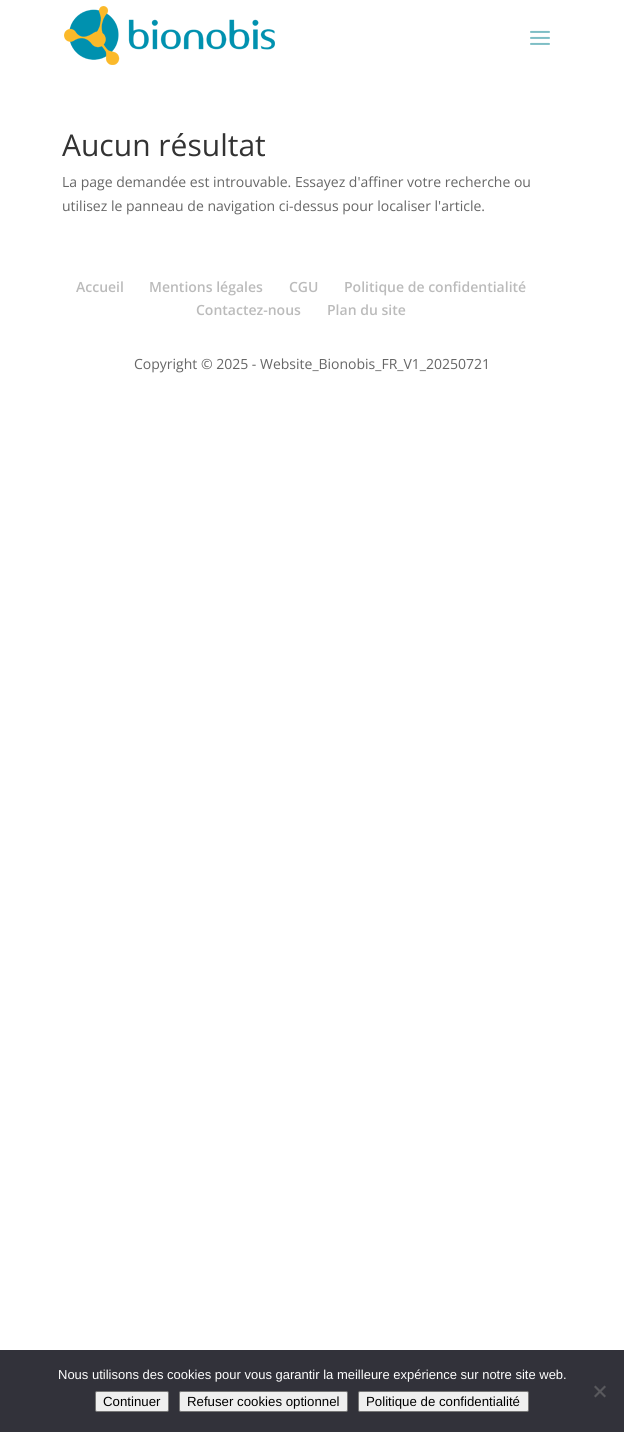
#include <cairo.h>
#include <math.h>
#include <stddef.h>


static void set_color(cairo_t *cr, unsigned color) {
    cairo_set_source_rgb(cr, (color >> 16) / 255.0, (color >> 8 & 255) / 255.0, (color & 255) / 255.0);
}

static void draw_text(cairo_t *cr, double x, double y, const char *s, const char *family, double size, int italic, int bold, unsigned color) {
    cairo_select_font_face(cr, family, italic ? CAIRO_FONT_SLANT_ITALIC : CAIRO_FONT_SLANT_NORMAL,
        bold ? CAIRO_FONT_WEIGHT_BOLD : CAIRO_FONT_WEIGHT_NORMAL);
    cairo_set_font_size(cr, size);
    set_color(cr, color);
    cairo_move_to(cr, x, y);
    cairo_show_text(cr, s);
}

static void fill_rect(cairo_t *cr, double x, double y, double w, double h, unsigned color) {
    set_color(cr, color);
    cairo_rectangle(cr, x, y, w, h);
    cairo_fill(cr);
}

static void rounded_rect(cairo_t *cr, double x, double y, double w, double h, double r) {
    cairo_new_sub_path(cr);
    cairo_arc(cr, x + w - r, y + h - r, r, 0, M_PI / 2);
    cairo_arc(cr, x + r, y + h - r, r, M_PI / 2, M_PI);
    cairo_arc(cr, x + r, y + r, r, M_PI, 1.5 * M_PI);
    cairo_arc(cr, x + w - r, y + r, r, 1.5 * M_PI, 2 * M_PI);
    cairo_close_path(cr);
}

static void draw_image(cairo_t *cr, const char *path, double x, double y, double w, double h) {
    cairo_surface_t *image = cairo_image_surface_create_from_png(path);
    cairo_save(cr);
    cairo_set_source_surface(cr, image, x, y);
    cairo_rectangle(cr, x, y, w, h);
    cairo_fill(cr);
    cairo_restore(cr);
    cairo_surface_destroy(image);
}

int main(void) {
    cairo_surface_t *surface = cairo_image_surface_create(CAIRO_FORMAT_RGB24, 624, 1432);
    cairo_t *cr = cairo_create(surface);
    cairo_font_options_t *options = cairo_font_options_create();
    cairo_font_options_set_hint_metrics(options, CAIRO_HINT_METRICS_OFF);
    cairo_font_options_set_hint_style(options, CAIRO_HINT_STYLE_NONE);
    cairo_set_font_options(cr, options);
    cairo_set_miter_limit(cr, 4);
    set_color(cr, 0xFFFFFF);
    cairo_paint(cr);
    draw_image(cr, "assets/img1.png", 64, 6, 211, 59);
    draw_image(cr, "assets/img2.png", 530, 30, 20, 15);
    draw_text(cr, 62, 156, "Aucun résultat", "Open Sans", 30, 0, 0, 0x333333);
    draw_text(cr, 62, 187, "La page demandée est introuvable. Essayez d'affiner votre recherche ou", "Open Sans", 14, 0, 0, 0x666666);
    draw_text(cr, 62, 211, "utilisez le panneau de navigation ci-dessus pour localiser l'article.", "Open Sans", 14, 0, 0, 0x666666);
    draw_text(cr, 76, 292, "Accueil", "Open Sans SemiBold", 14, 0, 0, 0xBBBBBB);
    draw_text(cr, 149, 292, "Mentions légales", "Open Sans SemiBold", 14, 0, 0, 0xBBBBBB);
    draw_text(cr, 289, 292, "CGU", "Open Sans SemiBold", 14, 0, 0, 0xBBBBBB);
    draw_text(cr, 344, 292, "Politique de confidentialité", "Open Sans SemiBold", 14, 0, 0, 0xBBBBBB);
    draw_text(cr, 196, 315, "Contactez-nous", "Open Sans SemiBold", 14, 0, 0, 0xBBBBBB);
    draw_text(cr, 327, 315, "Plan du site", "Open Sans SemiBold", 14, 0, 0, 0xBBBBBB);
    draw_text(cr, 134, 369, "Copyright © 2025 - Website_Bionobis_FR_V1_20250721", "Open Sans", 14, 0, 0, 0x666666);
    fill_rect(cr, 0, 1350, 624, 82, 0x32323A);
    draw_text(cr, 58, 1379, "Nous utilisons des cookies pour vous garantir la meilleure expérience sur notre site web.", "Liberation Sans", 13, 0, 0, 0xFFFFFF);
    set_color(cr, 0x59595D);
    cairo_new_path(cr);
    cairo_move_to(cr, 604.5, 1385.5);
    cairo_line_to(cr, 606, 1387);
    cairo_line_to(cr, 595.5, 1397.5);
    cairo_line_to(cr, 594, 1396);
    cairo_close_path(cr);
    cairo_fill(cr);
    cairo_new_path(cr);
    cairo_move_to(cr, 594, 1387);
    cairo_line_to(cr, 595.5, 1385.5);
    cairo_line_to(cr, 606, 1396);
    cairo_line_to(cr, 604.5, 1397.5);
    cairo_close_path(cr);
    cairo_fill(cr);
    set_color(cr, 0xEFEFEF);
    rounded_rect(cr, 95.5, 1391.5, 73, 20, 1.5);
    cairo_fill_preserve(cr);
    set_color(cr, 0x767676);
    cairo_set_line_width(cr, 1);
    cairo_stroke(cr);
    draw_text(cr, 103, 1406, "Continuer", "Liberation Sans", 13.25, 0, 0, 0x000000);
    set_color(cr, 0xEFEFEF);
    rounded_rect(cr, 179.5, 1391.5, 168, 20, 1.5);
    cairo_fill_preserve(cr);
    set_color(cr, 0x767676);
    cairo_stroke(cr);
    draw_text(cr, 187, 1406, "Refuser cookies optionnel", "Liberation Sans", 13.25, 0, 0, 0x000000);
    set_color(cr, 0xEFEFEF);
    rounded_rect(cr, 358.5, 1391.5, 170, 20, 1.5);
    cairo_fill_preserve(cr);
    set_color(cr, 0x767676);
    cairo_stroke(cr);
    draw_text(cr, 366, 1406, "Politique de confidentialité", "Liberation Sans", 13.25, 0, 0, 0x000000);
    cairo_surface_write_to_png(surface, "output.png");
    cairo_font_options_destroy(options);
    cairo_destroy(cr);
    cairo_surface_destroy(surface);
    return 0;
}
